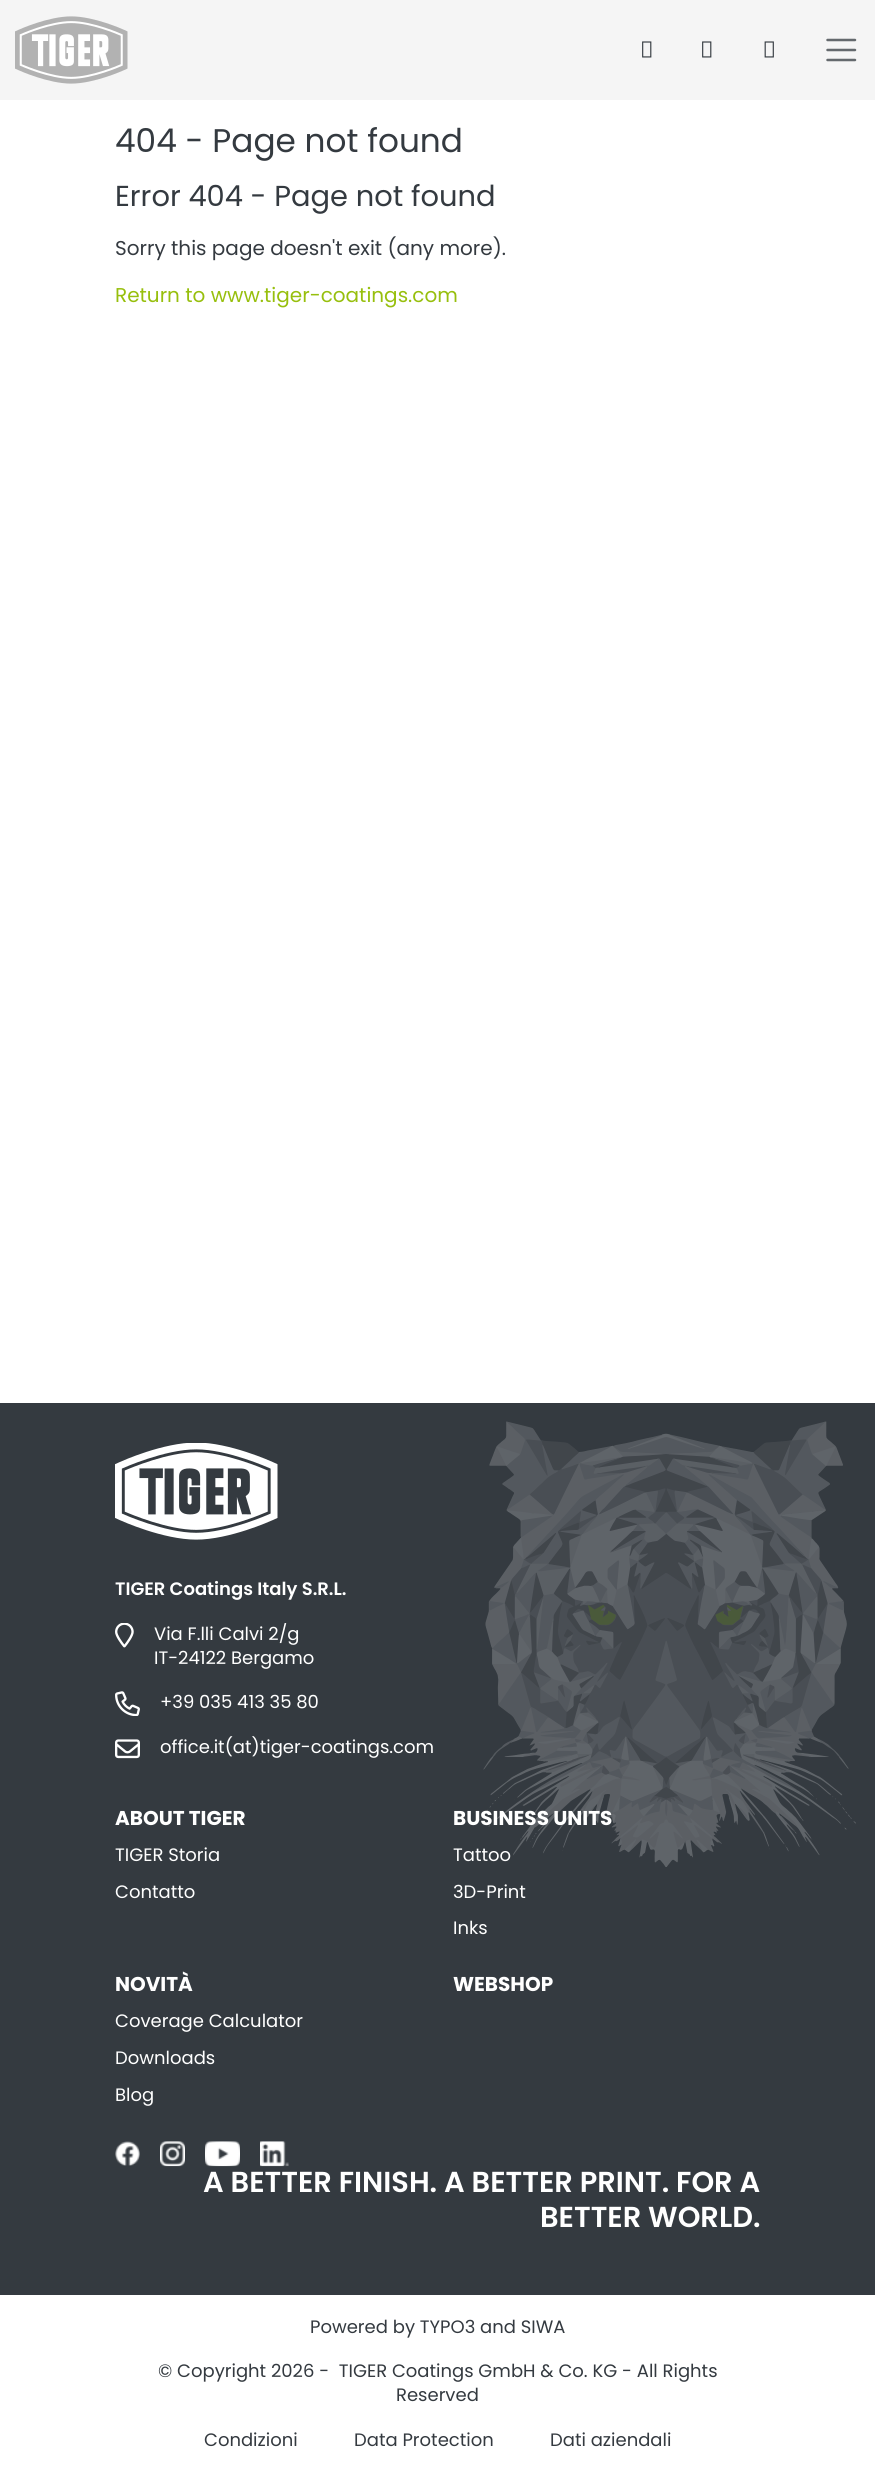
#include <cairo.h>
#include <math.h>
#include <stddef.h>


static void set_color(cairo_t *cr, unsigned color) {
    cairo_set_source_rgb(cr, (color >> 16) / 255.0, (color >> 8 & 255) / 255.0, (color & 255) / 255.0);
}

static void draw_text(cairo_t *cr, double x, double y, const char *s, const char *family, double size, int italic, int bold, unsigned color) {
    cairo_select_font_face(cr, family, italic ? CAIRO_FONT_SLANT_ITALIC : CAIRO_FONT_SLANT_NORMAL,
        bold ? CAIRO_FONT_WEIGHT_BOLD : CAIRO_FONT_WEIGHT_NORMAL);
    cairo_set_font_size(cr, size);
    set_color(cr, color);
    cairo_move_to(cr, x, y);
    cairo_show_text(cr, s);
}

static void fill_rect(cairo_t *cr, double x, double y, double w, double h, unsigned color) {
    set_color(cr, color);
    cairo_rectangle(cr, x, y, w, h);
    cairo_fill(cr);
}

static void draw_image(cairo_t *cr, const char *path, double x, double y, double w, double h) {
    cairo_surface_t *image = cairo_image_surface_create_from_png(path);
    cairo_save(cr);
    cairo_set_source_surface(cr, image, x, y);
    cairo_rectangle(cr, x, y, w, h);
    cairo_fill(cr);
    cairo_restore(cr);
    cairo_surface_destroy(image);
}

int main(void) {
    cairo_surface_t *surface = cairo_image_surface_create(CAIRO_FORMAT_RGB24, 875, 2472);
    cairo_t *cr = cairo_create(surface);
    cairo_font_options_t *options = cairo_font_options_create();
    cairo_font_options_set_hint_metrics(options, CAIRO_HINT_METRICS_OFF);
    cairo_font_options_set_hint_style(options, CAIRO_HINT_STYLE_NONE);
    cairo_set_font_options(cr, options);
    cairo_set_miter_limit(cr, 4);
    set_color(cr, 0xFFFFFF);
    cairo_paint(cr);
    fill_rect(cr, 0, 0, 875, 100, 0xF5F5F5);
    draw_image(cr, "assets/img1.png", 15, 16, 113, 68);
    draw_image(cr, "assets/img2.png", 642, 41, 10, 17);
    draw_image(cr, "assets/img2.png", 702, 41, 10, 17);
    draw_image(cr, "assets/img3.png", 764, 41, 10, 17);
    cairo_new_path(cr);
    cairo_move_to(cr, 827.5, 40);
    cairo_line_to(cr, 855, 40);
    cairo_move_to(cr, 827.5, 50);
    cairo_line_to(cr, 855, 50);
    cairo_move_to(cr, 827.5, 60);
    cairo_line_to(cr, 855, 60);
    set_color(cr, 0x64696D);
    cairo_set_line_width(cr, 2.5);
    cairo_set_line_cap(cr, CAIRO_LINE_CAP_ROUND);
    cairo_stroke(cr);
    draw_text(cr, 115, 152, "404 - Page not found", "Poppins", 32.75, 0, 0, 0x343A40);
    draw_text(cr, 115, 206, "Error 404 - Page not found", "Poppins", 28.9, 0, 0, 0x343A40);
    draw_text(cr, 115, 255, "Sorry this page doesn't exit (any more).", "Poppins", 20, 0, 0, 0x343A40);
    draw_text(cr, 115, 302, "Return to www.tiger-coatings.com", "Poppins", 20, 0, 0, 0x97BF0D);
    fill_rect(cr, 0, 1403, 875, 892, 0x343A40);
    draw_image(cr, "assets/img4.png", 479, 1421, 377, 446);
    draw_image(cr, "assets/img5.png", 115, 1443, 163, 97);
    draw_text(cr, 115, 1595, "TIGER Coatings Italy S.R.L.", "Poppins SemiBold", 18, 0, 0, 0xFFFFFF);
    draw_image(cr, "assets/img6.png", 115, 1623, 19, 25);
    draw_text(cr, 154, 1640, "Via F.lli Calvi 2/g", "Poppins", 18, 0, 0, 0xFFFFFF);
    draw_text(cr, 154, 1664, "IT-24122 Bergamo", "Poppins", 18, 0, 0, 0xFFFFFF);
    draw_image(cr, "assets/img7.png", 115, 1691, 25, 25);
    draw_text(cr, 160, 1708, "+39 035 413 35 80", "Poppins", 18, 0, 0, 0xFFFFFF);
    draw_image(cr, "assets/img8.png", 115, 1739, 25, 20);
    draw_text(cr, 160, 1753, "office.it(at)tiger-coatings.com", "Poppins", 18, 0, 0, 0xFFFFFF);
    draw_text(cr, 115, 1825, "ABOUT TIGER", "Poppins", 20, 0, 1, 0xFFFFFF);
    draw_text(cr, 115, 1861, "TIGER Storia", "Poppins", 18, 0, 0, 0xFFFFFF);
    draw_text(cr, 115, 1898, "Contatto", "Poppins", 18, 0, 0, 0xFFFFFF);
    draw_text(cr, 453, 1825, "BUSINESS UNITS", "Poppins", 20, 0, 1, 0xFFFFFF);
    draw_text(cr, 453, 1861, "Tattoo", "Poppins", 18, 0, 0, 0xFFFFFF);
    draw_text(cr, 453, 1898, "3D-Print", "Poppins", 18, 0, 0, 0xFFFFFF);
    draw_text(cr, 453, 1934, "Inks", "Poppins", 18, 0, 0, 0xFFFFFF);
    draw_text(cr, 115, 1991, "NOVITÀ", "Poppins", 20, 0, 1, 0xFFFFFF);
    draw_text(cr, 115, 2027, "Coverage Calculator", "Poppins", 18, 0, 0, 0xFFFFFF);
    draw_text(cr, 115, 2064, "Downloads", "Poppins", 18, 0, 0, 0xFFFFFF);
    draw_text(cr, 115, 2101, "Blog", "Poppins", 18, 0, 0, 0xFFFFFF);
    draw_text(cr, 453, 1991, "WEBSHOP", "Poppins", 20, 0, 1, 0xFFFFFF);
    draw_image(cr, "assets/img9.png", 115, 2141, 25, 25);
    draw_image(cr, "assets/img10.png", 160, 2141, 25, 26);
    draw_image(cr, "assets/img11.png", 205, 2141, 35, 26);
    draw_image(cr, "assets/img12.png", 260, 2141, 29, 26);
    draw_text(cr, 203, 2192, "A BETTER FINISH. A BETTER PRINT. FOR A", "Poppins SemiBold", 28.9, 0, 0, 0xFFFFFF);
    draw_text(cr, 540, 2227, "BETTER WORLD.", "Poppins SemiBold", 28.9, 0, 0, 0xFFFFFF);
    draw_text(cr, 310, 2333, "Powered by TYPO3 and SIWA", "Poppins", 18, 0, 0, 0x343A40);
    draw_text(cr, 158, 2377, "© Copyright 2026 -  TIGER Coatings GmbH & Co. KG - All Rights", "Poppins", 18, 0, 0, 0x343A40);
    draw_text(cr, 396, 2401, "Reserved", "Poppins", 18, 0, 0, 0x343A40);
    draw_text(cr, 204, 2446, "Condizioni", "Poppins", 18, 0, 0, 0x343A40);
    draw_text(cr, 354, 2446, "Data Protection", "Poppins", 18, 0, 0, 0x343A40);
    draw_text(cr, 550, 2446, "Dati aziendali", "Poppins", 18, 0, 0, 0x343A40);
    cairo_surface_write_to_png(surface, "output.png");
    cairo_font_options_destroy(options);
    cairo_destroy(cr);
    cairo_surface_destroy(surface);
    return 0;
}
